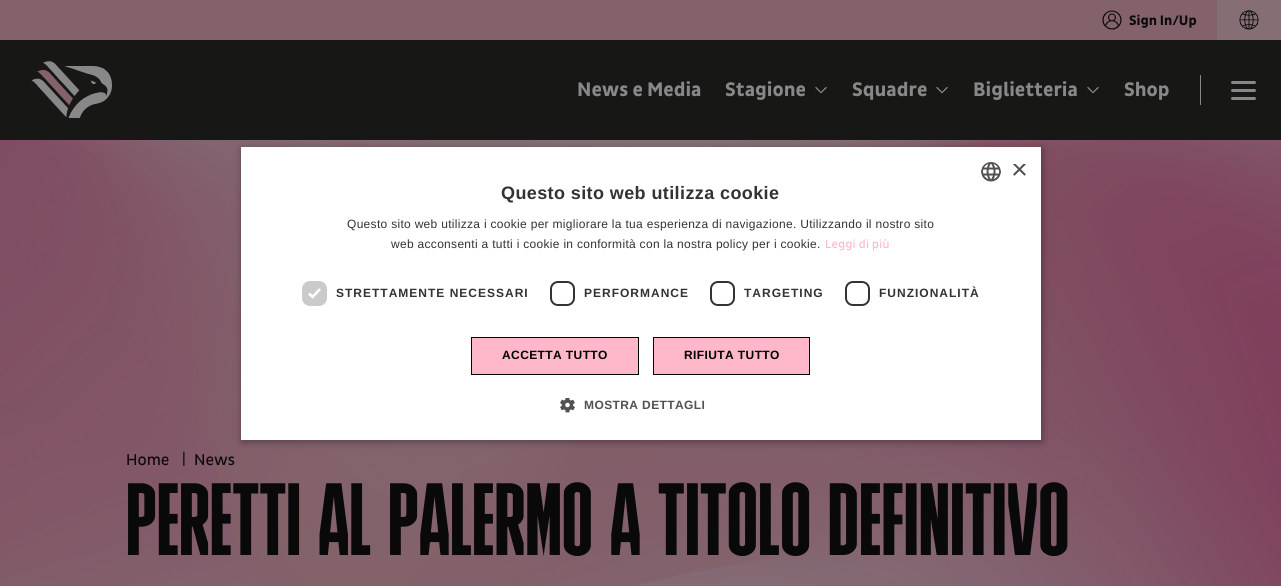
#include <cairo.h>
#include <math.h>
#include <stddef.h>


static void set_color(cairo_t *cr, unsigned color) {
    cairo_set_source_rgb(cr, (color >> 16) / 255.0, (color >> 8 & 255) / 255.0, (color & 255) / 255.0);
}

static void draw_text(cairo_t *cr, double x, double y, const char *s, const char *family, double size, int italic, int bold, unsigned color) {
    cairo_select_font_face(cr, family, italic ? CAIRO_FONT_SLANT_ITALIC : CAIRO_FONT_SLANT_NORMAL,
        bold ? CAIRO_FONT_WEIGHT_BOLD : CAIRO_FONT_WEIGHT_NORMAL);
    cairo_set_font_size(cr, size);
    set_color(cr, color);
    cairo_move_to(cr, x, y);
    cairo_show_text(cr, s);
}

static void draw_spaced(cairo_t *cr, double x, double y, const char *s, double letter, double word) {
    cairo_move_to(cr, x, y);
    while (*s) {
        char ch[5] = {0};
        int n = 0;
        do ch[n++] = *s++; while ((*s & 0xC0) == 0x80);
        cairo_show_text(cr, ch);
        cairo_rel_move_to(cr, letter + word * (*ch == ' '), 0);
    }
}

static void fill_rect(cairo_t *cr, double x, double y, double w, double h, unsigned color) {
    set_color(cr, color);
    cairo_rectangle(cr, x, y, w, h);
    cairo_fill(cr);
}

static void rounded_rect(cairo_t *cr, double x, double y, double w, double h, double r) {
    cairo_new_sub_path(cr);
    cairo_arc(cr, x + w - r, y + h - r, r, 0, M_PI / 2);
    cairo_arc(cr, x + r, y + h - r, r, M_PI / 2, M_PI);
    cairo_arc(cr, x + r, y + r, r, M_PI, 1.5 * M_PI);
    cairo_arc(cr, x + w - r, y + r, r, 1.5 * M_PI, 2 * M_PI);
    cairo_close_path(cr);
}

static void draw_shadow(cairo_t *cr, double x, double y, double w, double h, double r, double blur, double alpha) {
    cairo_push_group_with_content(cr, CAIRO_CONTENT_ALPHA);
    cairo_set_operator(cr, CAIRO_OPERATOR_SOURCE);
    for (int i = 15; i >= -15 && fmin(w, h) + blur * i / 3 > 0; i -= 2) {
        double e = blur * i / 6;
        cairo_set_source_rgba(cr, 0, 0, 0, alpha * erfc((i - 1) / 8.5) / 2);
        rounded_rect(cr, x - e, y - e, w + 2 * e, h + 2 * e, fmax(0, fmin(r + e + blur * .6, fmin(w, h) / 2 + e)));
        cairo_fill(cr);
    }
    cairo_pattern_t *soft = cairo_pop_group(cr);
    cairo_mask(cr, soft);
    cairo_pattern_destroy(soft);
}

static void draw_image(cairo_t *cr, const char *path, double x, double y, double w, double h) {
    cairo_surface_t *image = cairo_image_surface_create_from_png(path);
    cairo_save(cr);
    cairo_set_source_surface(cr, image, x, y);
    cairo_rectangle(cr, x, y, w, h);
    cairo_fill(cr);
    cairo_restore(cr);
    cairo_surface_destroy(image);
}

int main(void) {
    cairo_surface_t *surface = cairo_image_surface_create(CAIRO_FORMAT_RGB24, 1281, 586);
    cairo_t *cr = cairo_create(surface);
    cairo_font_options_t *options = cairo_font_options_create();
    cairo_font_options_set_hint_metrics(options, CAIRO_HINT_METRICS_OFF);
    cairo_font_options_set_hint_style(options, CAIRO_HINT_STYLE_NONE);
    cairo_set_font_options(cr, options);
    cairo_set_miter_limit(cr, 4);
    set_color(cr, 0xFFFFFF);
    cairo_paint(cr);
    fill_rect(cr, 0, 0, 1217, 40, 0x83626B);
    draw_image(cr, "assets/img1.png", 1102, 10, 20, 20);
    draw_text(cr, 1129, 25, "Sign In/Up", "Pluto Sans", 14, 0, 1, 0x090909);
    fill_rect(cr, 1217, 0, 64, 40, 0x856E74);
    draw_image(cr, "assets/img2.png", 1239, 10, 20, 20);
    fill_rect(cr, 0, 40, 1281, 100, 0x171816);
    draw_image(cr, "assets/img3.png", 31, 61, 82, 57);
    draw_text(cr, 577, 96, "News e Media", "Pluto Sans", 20, 0, 1, 0x888888);
    draw_text(cr, 725, 96, "Stagione", "Pluto Sans", 20, 0, 1, 0x888888);
    draw_image(cr, "assets/img4.png", 815, 86, 12, 8);
    draw_text(cr, 852, 96, "Squadre", "Pluto Sans", 20, 0, 1, 0x888888);
    draw_image(cr, "assets/img4.png", 936, 86, 12, 8);
    draw_text(cr, 973, 96, "Biglietteria", "Pluto Sans", 20, 0, 1, 0x888888);
    draw_image(cr, "assets/img4.png", 1087, 86, 12, 8);
    draw_text(cr, 1124, 96, "Shop", "Pluto Sans", 20, 0, 1, 0x888888);
    fill_rect(cr, 1200, 75, 1, 30, 0x888888);
    rounded_rect(cr, 1231, 81, 25, 3, 1.5);
    cairo_fill(cr);
    rounded_rect(cr, 1231, 89, 25, 3, 1.5);
    cairo_fill(cr);
    rounded_rect(cr, 1231, 97, 25, 3, 1.5);
    cairo_fill(cr);
    draw_image(cr, "assets/img7.png", 0, 140, 1281, 446);
    set_color(cr, 0x000000);
    draw_shadow(cr, 242, 149, 800, 293, 0, 4, 0.35);
    fill_rect(cr, 241, 147, 800, 293, 0xFFFFFF);
    draw_image(cr, "assets/img5.png", 981, 162, 20, 20);
    cairo_save(cr);
    cairo_rectangle(cr, 1011, 164, 15, 15);
    cairo_clip(cr);
    draw_text(cr, 1011, 179, "×", "Liberation Sans", 29, 0, 0, 0x525252);
    cairo_restore(cr);
    cairo_select_font_face(cr, "Liberation Sans", CAIRO_FONT_SLANT_NORMAL, CAIRO_FONT_WEIGHT_BOLD);
    cairo_set_font_size(cr, 18);
    set_color(cr, 0x333333);
    draw_spaced(cr, 501, 199, "Questo sito web utilizza cookie", 0.4, 0);
    cairo_select_font_face(cr, "Liberation Sans", CAIRO_FONT_SLANT_NORMAL, CAIRO_FONT_WEIGHT_NORMAL);
    cairo_set_font_size(cr, 12);
    draw_spaced(cr, 347, 228, "Questo sito web utilizza i cookie per migliorare la tua esperienza di navigazione. Utilizzando il nostro sito", 0.3, 0);
    draw_spaced(cr, 391, 248, "web acconsenti a tutti i cookie in conformità con la nostra policy per i cookie.", 0.3, 0);
    cairo_select_font_face(cr, "Pluto Sans", CAIRO_FONT_SLANT_NORMAL, CAIRO_FONT_WEIGHT_NORMAL);
    set_color(cr, 0xFFB8CA);
    draw_spaced(cr, 825, 248, "Leggi di più", 0.3, 0);
    set_color(cr, 0xCACACA);
    rounded_rect(cr, 302, 281, 25, 25, 8);
    cairo_fill(cr);
    cairo_new_path(cr);
    cairo_move_to(cr, 309, 293.5);
    cairo_line_to(cr, 312.5, 297);
    cairo_line_to(cr, 320, 289);
    set_color(cr, 0xFFFFFF);
    cairo_set_line_width(cr, 2.6);
    cairo_stroke(cr);
    cairo_select_font_face(cr, "Liberation Sans", CAIRO_FONT_SLANT_NORMAL, CAIRO_FONT_WEIGHT_BOLD);
    set_color(cr, 0x333333);
    draw_spaced(cr, 336, 297, "STRETTAMENTE NECESSARI", 1, 0);
    rounded_rect(cr, 551, 282, 23, 23, 7);
    cairo_set_line_width(cr, 2);
    cairo_stroke(cr);
    draw_spaced(cr, 584, 297, "PERFORMANCE", 1, 0);
    rounded_rect(cr, 711, 282, 23, 23, 7);
    cairo_stroke(cr);
    draw_spaced(cr, 744, 297, "TARGETING", 1, 0);
    rounded_rect(cr, 846, 282, 23, 23, 7);
    cairo_stroke(cr);
    draw_spaced(cr, 879, 297, "FUNZIONALITÀ", 1, 0);
    set_color(cr, 0xFFB8CA);
    cairo_rectangle(cr, 471.5, 337.5, 167, 37);
    cairo_fill_preserve(cr);
    set_color(cr, 0x000000);
    cairo_set_line_width(cr, 1);
    cairo_stroke(cr);
    draw_spaced(cr, 502, 359, "ACCETTA TUTTO", 0.4, 0);
    set_color(cr, 0xFFB8CA);
    cairo_rectangle(cr, 653.5, 337.5, 156, 37);
    cairo_fill_preserve(cr);
    set_color(cr, 0x000000);
    cairo_stroke(cr);
    draw_spaced(cr, 684, 359, "RIFIUTA TUTTO", 0.4, 0);
    draw_image(cr, "assets/img6.png", 560, 398, 15, 15);
    set_color(cr, 0x525252);
    draw_spaced(cr, 584, 409, "MOSTRA DETTAGLI", 0.4, 0);
    draw_text(cr, 126, 465, "Home", "Pluto Sans", 16, 0, 0, 0x090909);
    draw_text(cr, 182, 463, "|", "Pluto Sans", 16, 0, 0, 0x090909);
    draw_text(cr, 194, 465, "News", "Pluto Sans", 16, 0, 0, 0x090909);
    draw_text(cr, 126, 555, "PERETTI AL PALERMO A TITOLO DEFINITIVO", "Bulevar", 102.5, 0, 0, 0x090909);
    cairo_surface_write_to_png(surface, "output.png");
    cairo_font_options_destroy(options);
    cairo_destroy(cr);
    cairo_surface_destroy(surface);
    return 0;
}
